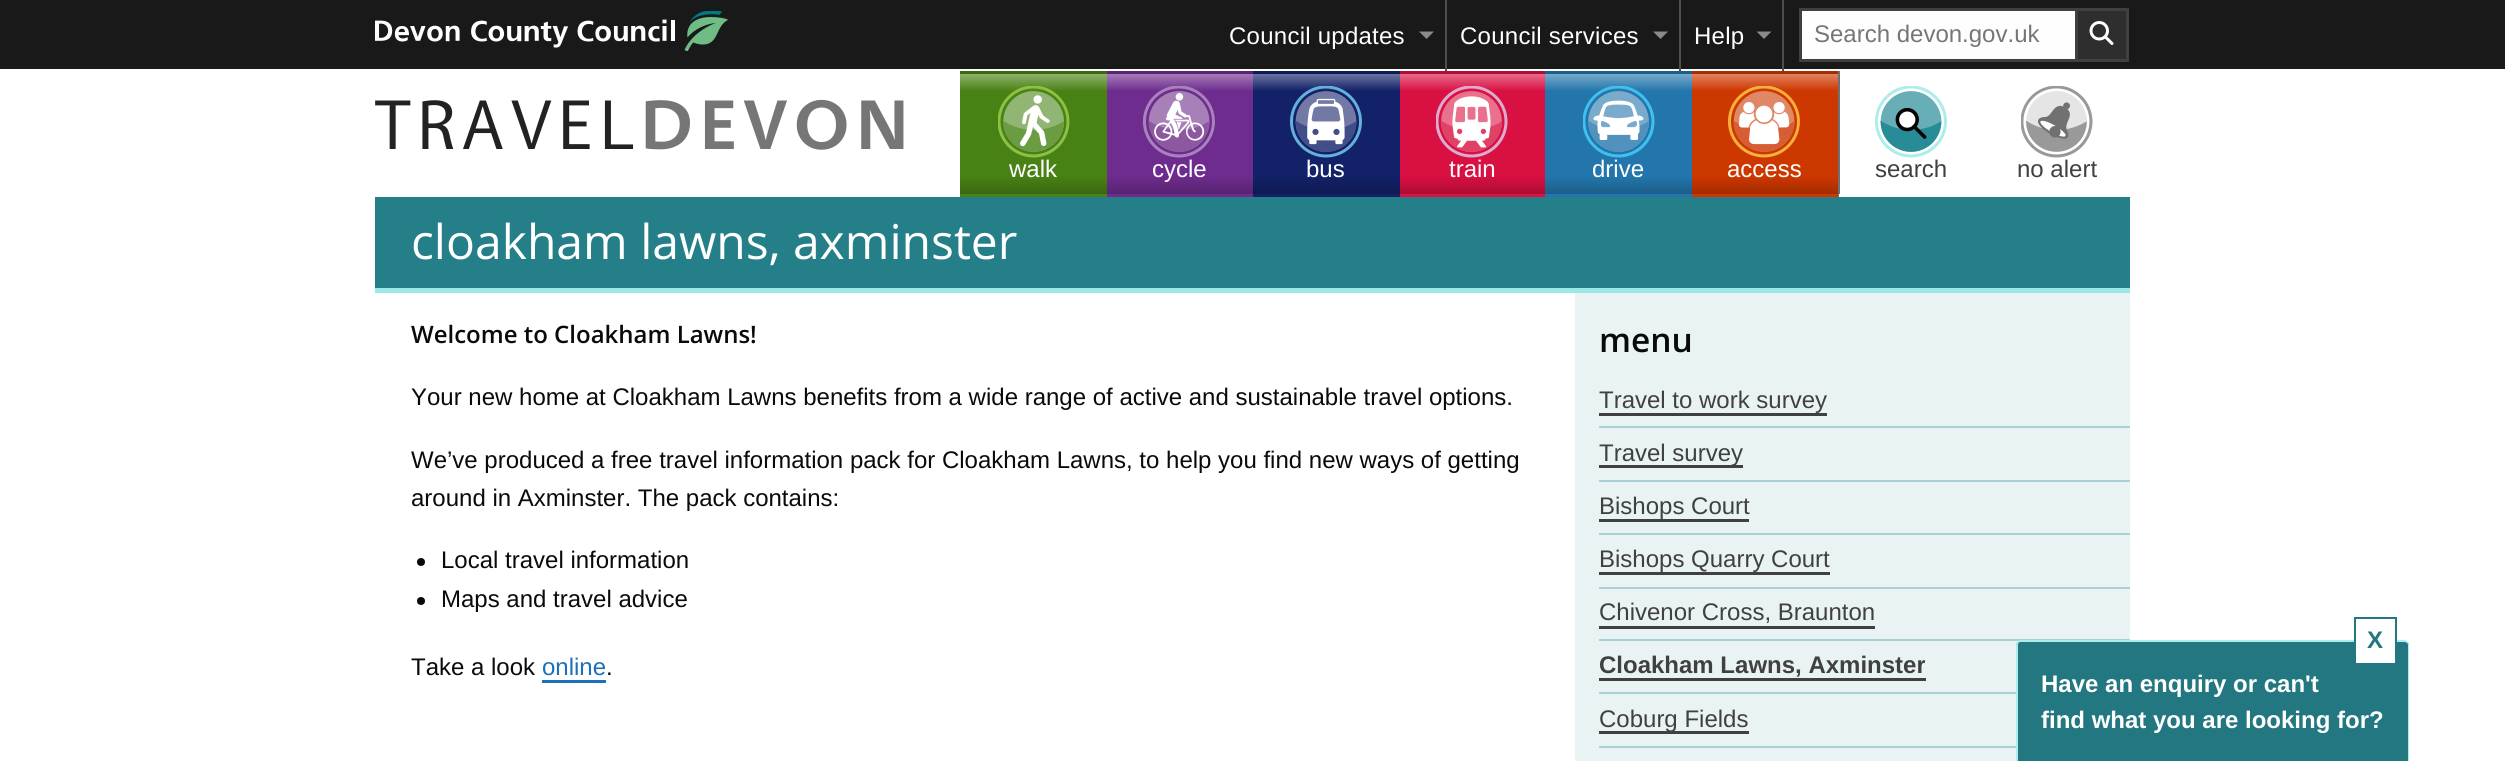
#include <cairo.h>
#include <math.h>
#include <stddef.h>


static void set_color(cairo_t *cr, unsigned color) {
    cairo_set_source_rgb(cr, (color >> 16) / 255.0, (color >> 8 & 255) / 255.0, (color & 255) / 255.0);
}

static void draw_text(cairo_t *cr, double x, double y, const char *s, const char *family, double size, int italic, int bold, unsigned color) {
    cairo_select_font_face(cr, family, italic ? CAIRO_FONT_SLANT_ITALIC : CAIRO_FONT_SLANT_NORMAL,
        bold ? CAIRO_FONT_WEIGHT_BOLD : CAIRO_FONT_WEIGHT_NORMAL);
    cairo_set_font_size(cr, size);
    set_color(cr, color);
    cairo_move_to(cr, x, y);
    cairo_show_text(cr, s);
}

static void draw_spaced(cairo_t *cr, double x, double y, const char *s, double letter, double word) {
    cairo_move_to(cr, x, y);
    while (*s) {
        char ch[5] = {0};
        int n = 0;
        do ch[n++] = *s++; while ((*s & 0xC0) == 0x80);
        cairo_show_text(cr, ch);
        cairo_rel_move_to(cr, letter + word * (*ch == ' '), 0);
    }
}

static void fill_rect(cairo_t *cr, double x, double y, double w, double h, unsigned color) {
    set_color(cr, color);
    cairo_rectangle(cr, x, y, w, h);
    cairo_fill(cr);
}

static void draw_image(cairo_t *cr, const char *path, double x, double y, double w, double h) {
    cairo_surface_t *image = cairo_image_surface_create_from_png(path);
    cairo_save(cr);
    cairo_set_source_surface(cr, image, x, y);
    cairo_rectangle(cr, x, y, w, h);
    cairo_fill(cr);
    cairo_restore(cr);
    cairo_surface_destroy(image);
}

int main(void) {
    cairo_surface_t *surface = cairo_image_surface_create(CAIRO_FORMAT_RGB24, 2505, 761);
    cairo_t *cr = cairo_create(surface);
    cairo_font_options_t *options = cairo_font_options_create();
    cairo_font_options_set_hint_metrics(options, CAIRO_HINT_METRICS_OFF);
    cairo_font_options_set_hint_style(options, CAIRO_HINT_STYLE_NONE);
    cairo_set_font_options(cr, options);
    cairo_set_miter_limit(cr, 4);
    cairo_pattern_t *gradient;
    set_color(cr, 0xFFFFFF);
    cairo_paint(cr);
    fill_rect(cr, 0, 0, 2505, 69, 0x191919);
    draw_image(cr, "assets/img1.png", 375, 11, 353, 40);
    fill_rect(cr, 1445, 0, 2, 71, 0x4E4E4E);
    cairo_select_font_face(cr, "Liberation Sans", CAIRO_FONT_SLANT_NORMAL, CAIRO_FONT_WEIGHT_NORMAL);
    cairo_set_font_size(cr, 24);
    set_color(cr, 0xFFFFFF);
    draw_spaced(cr, 1229, 44, "Council updates", 0.25, 0);
    set_color(cr, 0x8A8A8A);
    cairo_new_path(cr);
    cairo_move_to(cr, 1419, 31.5);
    cairo_line_to(cr, 1434, 31.5);
    cairo_line_to(cr, 1426.5, 39);
    cairo_close_path(cr);
    cairo_fill(cr);
    fill_rect(cr, 1679, 0, 2, 71, 0x4E4E4E);
    set_color(cr, 0xFFFFFF);
    draw_spaced(cr, 1460, 44, "Council services", 0.25, 0);
    set_color(cr, 0x8A8A8A);
    cairo_new_path(cr);
    cairo_move_to(cr, 1653, 31.5);
    cairo_line_to(cr, 1668, 31.5);
    cairo_line_to(cr, 1660.5, 39);
    cairo_close_path(cr);
    cairo_fill(cr);
    fill_rect(cr, 1782, 0, 2, 71, 0x4E4E4E);
    set_color(cr, 0xFFFFFF);
    draw_spaced(cr, 1694, 44, "Help", 0.25, 0);
    set_color(cr, 0x8A8A8A);
    cairo_new_path(cr);
    cairo_move_to(cr, 1756.5, 31.5);
    cairo_line_to(cr, 1771.5, 31.5);
    cairo_line_to(cr, 1764, 39);
    cairo_close_path(cr);
    cairo_fill(cr);
    set_color(cr, 0xFEFEFE);
    cairo_rectangle(cr, 1800.5, 9.5, 276, 51);
    cairo_fill_preserve(cr);
    set_color(cr, 0x404040);
    cairo_set_line_width(cr, 3);
    cairo_stroke(cr);
    draw_text(cr, 1814, 42, "Search devon.gov.uk", "Liberation Sans", 24, 0, 0, 0x767676);
    fill_rect(cr, 2078, 11, 48, 48, 0x2E2E2E);
    fill_rect(cr, 2078, 8, 51, 3, 0x404040);
    fill_rect(cr, 2126, 8, 3, 54, 0x404040);
    fill_rect(cr, 2078, 59, 51, 3, 0x404040);
    draw_image(cr, "assets/img2.png", 2089, 21, 25, 24);
    cairo_select_font_face(cr, "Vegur", CAIRO_FONT_SLANT_NORMAL, CAIRO_FONT_WEIGHT_NORMAL);
    cairo_set_font_size(cr, 71.5);
    set_color(cr, 0x222222);
    draw_spaced(cr, 375, 149, "TRAVEL", 6.5, 0);
    cairo_select_font_face(cr, "Vegur", CAIRO_FONT_SLANT_NORMAL, CAIRO_FONT_WEIGHT_BOLD);
    set_color(cr, 0x767676);
    draw_spaced(cr, 641, 149, "DEVON", 8.25, 0);
    gradient = cairo_pattern_create_linear(1034, -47, 1034, 74);
    cairo_pattern_add_color_stop_rgba(gradient, 0, 0.569, 0.706, 0.447, 1);
    cairo_pattern_add_color_stop_rgba(gradient, 0.15, 0.282, 0.51, 0.078, 1);
    cairo_pattern_add_color_stop_rgba(gradient, 0.85, 0.282, 0.51, 0.078, 1);
    cairo_pattern_add_color_stop_rgba(gradient, 1, 0.224, 0.408, 0.063, 1);
    cairo_set_source(cr, gradient);
    cairo_pattern_destroy(gradient);
    cairo_rectangle(cr, 960, 71, 147, 3);
    cairo_fill(cr);
    gradient = cairo_pattern_create_linear(1034, 73, 1034, 194);
    cairo_pattern_add_color_stop_rgba(gradient, 0, 0.569, 0.706, 0.447, 1);
    cairo_pattern_add_color_stop_rgba(gradient, 0.15, 0.282, 0.51, 0.078, 1);
    cairo_pattern_add_color_stop_rgba(gradient, 0.85, 0.282, 0.51, 0.078, 1);
    cairo_pattern_add_color_stop_rgba(gradient, 1, 0.224, 0.408, 0.063, 1);
    cairo_set_source(cr, gradient);
    cairo_pattern_destroy(gradient);
    cairo_rectangle(cr, 960, 74, 147, 120);
    cairo_fill(cr);
    fill_rect(cr, 960, 194, 147, 3, 0x488214);
    draw_image(cr, "assets/img3.png", 998, 86, 72, 72);
    draw_text(cr, 1009, 177, "walk", "Liberation Sans", 24, 0, 0, 0xFFFFFF);
    gradient = cairo_pattern_create_linear(1180, -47, 1180, 74);
    cairo_pattern_add_color_stop_rgba(gradient, 0, 0.659, 0.502, 0.733, 1);
    cairo_pattern_add_color_stop_rgba(gradient, 0.15, 0.431, 0.173, 0.557, 1);
    cairo_pattern_add_color_stop_rgba(gradient, 0.85, 0.431, 0.173, 0.557, 1);
    cairo_pattern_add_color_stop_rgba(gradient, 1, 0.345, 0.137, 0.443, 1);
    cairo_set_source(cr, gradient);
    cairo_pattern_destroy(gradient);
    cairo_rectangle(cr, 1107, 71, 146, 3);
    cairo_fill(cr);
    gradient = cairo_pattern_create_linear(1180, 73, 1180, 194);
    cairo_pattern_add_color_stop_rgba(gradient, 0, 0.659, 0.502, 0.733, 1);
    cairo_pattern_add_color_stop_rgba(gradient, 0.15, 0.431, 0.173, 0.557, 1);
    cairo_pattern_add_color_stop_rgba(gradient, 0.85, 0.431, 0.173, 0.557, 1);
    cairo_pattern_add_color_stop_rgba(gradient, 1, 0.345, 0.137, 0.443, 1);
    cairo_set_source(cr, gradient);
    cairo_pattern_destroy(gradient);
    cairo_rectangle(cr, 1107, 74, 146, 120);
    cairo_fill(cr);
    fill_rect(cr, 1107, 194, 146, 3, 0x6E2C8E);
    draw_image(cr, "assets/img4.png", 1143, 86, 72, 72);
    draw_text(cr, 1152, 177, "cycle", "Liberation Sans", 24, 0, 0, 0xFFFFFF);
    gradient = cairo_pattern_create_linear(1326, -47, 1326, 74);
    cairo_pattern_add_color_stop_rgba(gradient, 0, 0.439, 0.475, 0.643, 1);
    cairo_pattern_add_color_stop_rgba(gradient, 0.15, 0.071, 0.129, 0.408, 1);
    cairo_pattern_add_color_stop_rgba(gradient, 0.85, 0.071, 0.129, 0.408, 1);
    cairo_pattern_add_color_stop_rgba(gradient, 1, 0.055, 0.102, 0.325, 1);
    cairo_set_source(cr, gradient);
    cairo_pattern_destroy(gradient);
    cairo_rectangle(cr, 1253, 71, 147, 3);
    cairo_fill(cr);
    gradient = cairo_pattern_create_linear(1326, 73, 1326, 194);
    cairo_pattern_add_color_stop_rgba(gradient, 0, 0.439, 0.475, 0.643, 1);
    cairo_pattern_add_color_stop_rgba(gradient, 0.15, 0.071, 0.129, 0.408, 1);
    cairo_pattern_add_color_stop_rgba(gradient, 0.85, 0.071, 0.129, 0.408, 1);
    cairo_pattern_add_color_stop_rgba(gradient, 1, 0.055, 0.102, 0.325, 1);
    cairo_set_source(cr, gradient);
    cairo_pattern_destroy(gradient);
    cairo_rectangle(cr, 1253, 74, 147, 120);
    cairo_fill(cr);
    fill_rect(cr, 1253, 194, 147, 3, 0x122168);
    draw_image(cr, "assets/img5.png", 1290, 86, 72, 72);
    draw_text(cr, 1306, 177, "bus", "Liberation Sans", 24, 0, 0, 0xFFFFFF);
    gradient = cairo_pattern_create_linear(1472, -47, 1472, 74);
    cairo_pattern_add_color_stop_rgba(gradient, 0, 0.91, 0.435, 0.553, 1);
    cairo_pattern_add_color_stop_rgba(gradient, 0.15, 0.851, 0.063, 0.259, 1);
    cairo_pattern_add_color_stop_rgba(gradient, 0.85, 0.851, 0.063, 0.259, 1);
    cairo_pattern_add_color_stop_rgba(gradient, 1, 0.678, 0.047, 0.204, 1);
    cairo_set_source(cr, gradient);
    cairo_pattern_destroy(gradient);
    cairo_rectangle(cr, 1400, 71, 145, 3);
    cairo_fill(cr);
    gradient = cairo_pattern_create_linear(1472, 73, 1472, 194);
    cairo_pattern_add_color_stop_rgba(gradient, 0, 0.91, 0.435, 0.553, 1);
    cairo_pattern_add_color_stop_rgba(gradient, 0.15, 0.851, 0.063, 0.259, 1);
    cairo_pattern_add_color_stop_rgba(gradient, 0.85, 0.851, 0.063, 0.259, 1);
    cairo_pattern_add_color_stop_rgba(gradient, 1, 0.678, 0.047, 0.204, 1);
    cairo_set_source(cr, gradient);
    cairo_pattern_destroy(gradient);
    cairo_rectangle(cr, 1400, 74, 145, 120);
    cairo_fill(cr);
    fill_rect(cr, 1400, 194, 145, 3, 0xD91042);
    draw_image(cr, "assets/img6.png", 1436, 86, 72, 72);
    draw_text(cr, 1449, 177, "train", "Liberation Sans", 24, 0, 0, 0xFFFFFF);
    gradient = cairo_pattern_create_linear(1619, -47, 1619, 74);
    cairo_pattern_add_color_stop_rgba(gradient, 0, 0.482, 0.675, 0.804, 1);
    cairo_pattern_add_color_stop_rgba(gradient, 0.15, 0.137, 0.463, 0.675, 1);
    cairo_pattern_add_color_stop_rgba(gradient, 0.85, 0.137, 0.463, 0.675, 1);
    cairo_pattern_add_color_stop_rgba(gradient, 1, 0.11, 0.369, 0.537, 1);
    cairo_set_source(cr, gradient);
    cairo_pattern_destroy(gradient);
    cairo_rectangle(cr, 1545, 71, 147, 3);
    cairo_fill(cr);
    gradient = cairo_pattern_create_linear(1619, 73, 1619, 194);
    cairo_pattern_add_color_stop_rgba(gradient, 0, 0.482, 0.675, 0.804, 1);
    cairo_pattern_add_color_stop_rgba(gradient, 0.15, 0.137, 0.463, 0.675, 1);
    cairo_pattern_add_color_stop_rgba(gradient, 0.85, 0.137, 0.463, 0.675, 1);
    cairo_pattern_add_color_stop_rgba(gradient, 1, 0.11, 0.369, 0.537, 1);
    cairo_set_source(cr, gradient);
    cairo_pattern_destroy(gradient);
    cairo_rectangle(cr, 1545, 74, 147, 120);
    cairo_fill(cr);
    fill_rect(cr, 1545, 194, 147, 3, 0x2376AC);
    draw_image(cr, "assets/img7.png", 1583, 86, 72, 72);
    draw_text(cr, 1592, 177, "drive", "Liberation Sans", 24, 0, 0, 0xFFFFFF);
    gradient = cairo_pattern_create_linear(1765, -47, 1765, 74);
    cairo_pattern_add_color_stop_rgba(gradient, 0, 0.882, 0.529, 0.4, 1);
    cairo_pattern_add_color_stop_rgba(gradient, 0.15, 0.804, 0.216, 0, 1);
    cairo_pattern_add_color_stop_rgba(gradient, 0.85, 0.804, 0.216, 0, 1);
    cairo_pattern_add_color_stop_rgba(gradient, 1, 0.643, 0.173, 0, 1);
    cairo_set_source(cr, gradient);
    cairo_pattern_destroy(gradient);
    cairo_rectangle(cr, 1692, 71, 146, 3);
    cairo_fill(cr);
    gradient = cairo_pattern_create_linear(1765, 73, 1765, 194);
    cairo_pattern_add_color_stop_rgba(gradient, 0, 0.882, 0.529, 0.4, 1);
    cairo_pattern_add_color_stop_rgba(gradient, 0.15, 0.804, 0.216, 0, 1);
    cairo_pattern_add_color_stop_rgba(gradient, 0.85, 0.804, 0.216, 0, 1);
    cairo_pattern_add_color_stop_rgba(gradient, 1, 0.643, 0.173, 0, 1);
    cairo_set_source(cr, gradient);
    cairo_pattern_destroy(gradient);
    cairo_rectangle(cr, 1692, 74, 146, 120);
    cairo_fill(cr);
    fill_rect(cr, 1692, 194, 146, 3, 0xCD3700);
    draw_image(cr, "assets/img8.png", 1728, 86, 72, 72);
    draw_text(cr, 1727, 177, "access", "Liberation Sans", 24, 0, 0, 0xFFFFFF);
    fill_rect(cr, 1838, 71, 2, 126, 0x707070);
    fill_rect(cr, 1839, 194, 1, 3, 0xFFFFFF);
    draw_image(cr, "assets/img9.png", 1875, 86, 72, 72);
    draw_text(cr, 1875, 177, "search", "Liberation Sans", 24, 0, 0, 0x404040);
    draw_image(cr, "assets/img10.png", 2021, 86, 72, 72);
    draw_text(cr, 2017, 177, "no alert", "Liberation Sans", 24, 0, 0, 0x404040);
    fill_rect(cr, 375, 197, 1755, 91, 0x247F89);
    fill_rect(cr, 375, 288, 1755, 5, 0x9BE9E6);
    draw_text(cr, 411, 259, "cloakham lawns, axminster", "Open Sans", 48, 0, 0, 0xFFFFFF);
    draw_text(cr, 411, 343, "Welcome to Cloakham Lawns!", "Open Sans SemiBold", 24, 0, 0, 0x0A0A0A);
    draw_text(cr, 411, 405, "Your new home at Cloakham Lawns benefits from a wide range of active and sustainable travel options.", "Liberation Sans", 24, 0, 0, 0x0A0A0A);
    draw_text(cr, 411, 468, "We’ve produced a free travel information pack for Cloakham Lawns, to help you find new ways of getting", "Liberation Sans", 24, 0, 0, 0x0A0A0A);
    draw_text(cr, 411, 506, "around in Axminster. The pack contains:", "Liberation Sans", 24, 0, 0, 0x0A0A0A);
    cairo_new_path(cr);
    cairo_arc(cr, 421, 562, 4, 0, 2 * M_PI);
    cairo_fill(cr);
    draw_text(cr, 441, 568, "Local travel information", "Liberation Sans", 24, 0, 0, 0x0A0A0A);
    cairo_new_path(cr);
    cairo_arc(cr, 421, 601, 4, 0, 2 * M_PI);
    cairo_fill(cr);
    draw_text(cr, 441, 607, "Maps and travel advice", "Liberation Sans", 24, 0, 0, 0x0A0A0A);
    draw_text(cr, 411, 675, "Take a look", "Liberation Sans", 24, 0, 0, 0x0A0A0A);
    draw_text(cr, 542, 675, "online", "Liberation Sans", 24, 0, 0, 0x1D70B8);
    fill_rect(cr, 542, 680, 64, 3, 0x1D70B8);
    draw_text(cr, 606, 675, ".", "Liberation Sans", 24, 0, 0, 0x0A0A0A);
    fill_rect(cr, 1575, 293, 555, 468, 0xE9F3F4);
    draw_text(cr, 1599, 352, "menu", "Open Sans SemiBold", 33.5, 0, 0, 0x0A0A0A);
    fill_rect(cr, 1599, 426, 531, 2, 0xA9D1D5);
    draw_text(cr, 1599, 408, "Travel to work survey", "Liberation Sans", 24, 0, 0, 0x404040);
    fill_rect(cr, 1599, 413, 228, 3, 0x404040);
    fill_rect(cr, 1599, 480, 531, 2, 0xA9D1D5);
    fill_rect(cr, 1599, 465, 144, 3, 0x404040);
    draw_text(cr, 1599, 461, "Travel survey", "Liberation Sans", 24, 0, 0, 0x404040);
    fill_rect(cr, 1599, 533, 531, 2, 0xA9D1D5);
    draw_text(cr, 1599, 514, "Bishops Court", "Liberation Sans", 24, 0, 0, 0x404040);
    fill_rect(cr, 1599, 519, 150, 3, 0x404040);
    fill_rect(cr, 1599, 587, 531, 2, 0xA9D1D5);
    draw_text(cr, 1599, 567, "Bishops Quarry Court", "Liberation Sans", 24, 0, 0, 0x404040);
    fill_rect(cr, 1599, 572, 231, 3, 0x404040);
    fill_rect(cr, 1599, 639, 531, 2, 0xA9D1D5);
    draw_text(cr, 1599, 620, "Chivenor Cross, Braunton", "Liberation Sans", 24, 0, 0, 0x404040);
    fill_rect(cr, 1599, 626, 276, 3, 0x404040);
    fill_rect(cr, 1599, 692, 417, 2, 0xA9D1D5);
    draw_text(cr, 1599, 673, "Cloakham Lawns, Axminster", "Liberation Sans", 24, 0, 1, 0x404040);
    fill_rect(cr, 1599, 678, 327, 3, 0x404040);
    fill_rect(cr, 1599, 746, 417, 2, 0xA9D1D5);
    fill_rect(cr, 1599, 731, 150, 3, 0x404040);
    draw_text(cr, 1599, 727, "Coburg Fields", "Liberation Sans", 24, 0, 0, 0x404040);
    set_color(cr, 0x227781);
    cairo_new_path(cr);
    cairo_move_to(cr, 2021, 641);
    cairo_line_to(cr, 2404, 641);
    cairo_curve_to(cr, 2407, 641, 2409, 643, 2409, 646);
    cairo_line_to(cr, 2409, 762);
    cairo_line_to(cr, 2016, 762);
    cairo_line_to(cr, 2016, 646);
    cairo_curve_to(cr, 2016, 643, 2018, 641, 2021, 641);
    cairo_close_path(cr);
    cairo_fill(cr);
    set_color(cr, 0xACEDEB);
    cairo_set_fill_rule(cr, CAIRO_FILL_RULE_EVEN_ODD);
    cairo_new_path(cr);
    cairo_move_to(cr, 2020, 640);
    cairo_line_to(cr, 2404, 640);
    cairo_curve_to(cr, 2407, 640, 2409, 643, 2409, 645);
    cairo_line_to(cr, 2409, 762);
    cairo_line_to(cr, 2016, 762);
    cairo_line_to(cr, 2016, 645);
    cairo_curve_to(cr, 2016, 643, 2018, 640, 2020, 640);
    cairo_close_path(cr);
    cairo_move_to(cr, 2020, 642);
    cairo_line_to(cr, 2404, 642);
    cairo_curve_to(cr, 2406, 642, 2408, 643, 2408, 645);
    cairo_line_to(cr, 2408, 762);
    cairo_line_to(cr, 2018, 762);
    cairo_line_to(cr, 2018, 645);
    cairo_curve_to(cr, 2018, 643, 2019, 642, 2020, 642);
    cairo_close_path(cr);
    cairo_fill(cr);
    fill_rect(cr, 2356, 640, 39, 23, 0xFFFFFF);
    cairo_rectangle(cr, 2355, 618, 41, 46);
    set_color(cr, 0x227781);
    cairo_set_line_width(cr, 2);
    cairo_stroke(cr);
    draw_text(cr, 2367, 648, "X", "Liberation Sans", 24, 0, 1, 0x227781);
    draw_text(cr, 2041, 692, "Have an enquiry or can't", "Liberation Sans", 24, 0, 1, 0xFFFFFF);
    draw_text(cr, 2041, 728, "find what you are looking for?", "Liberation Sans", 24, 0, 1, 0xFFFFFF);
    cairo_surface_write_to_png(surface, "output.png");
    cairo_font_options_destroy(options);
    cairo_destroy(cr);
    cairo_surface_destroy(surface);
    return 0;
}
